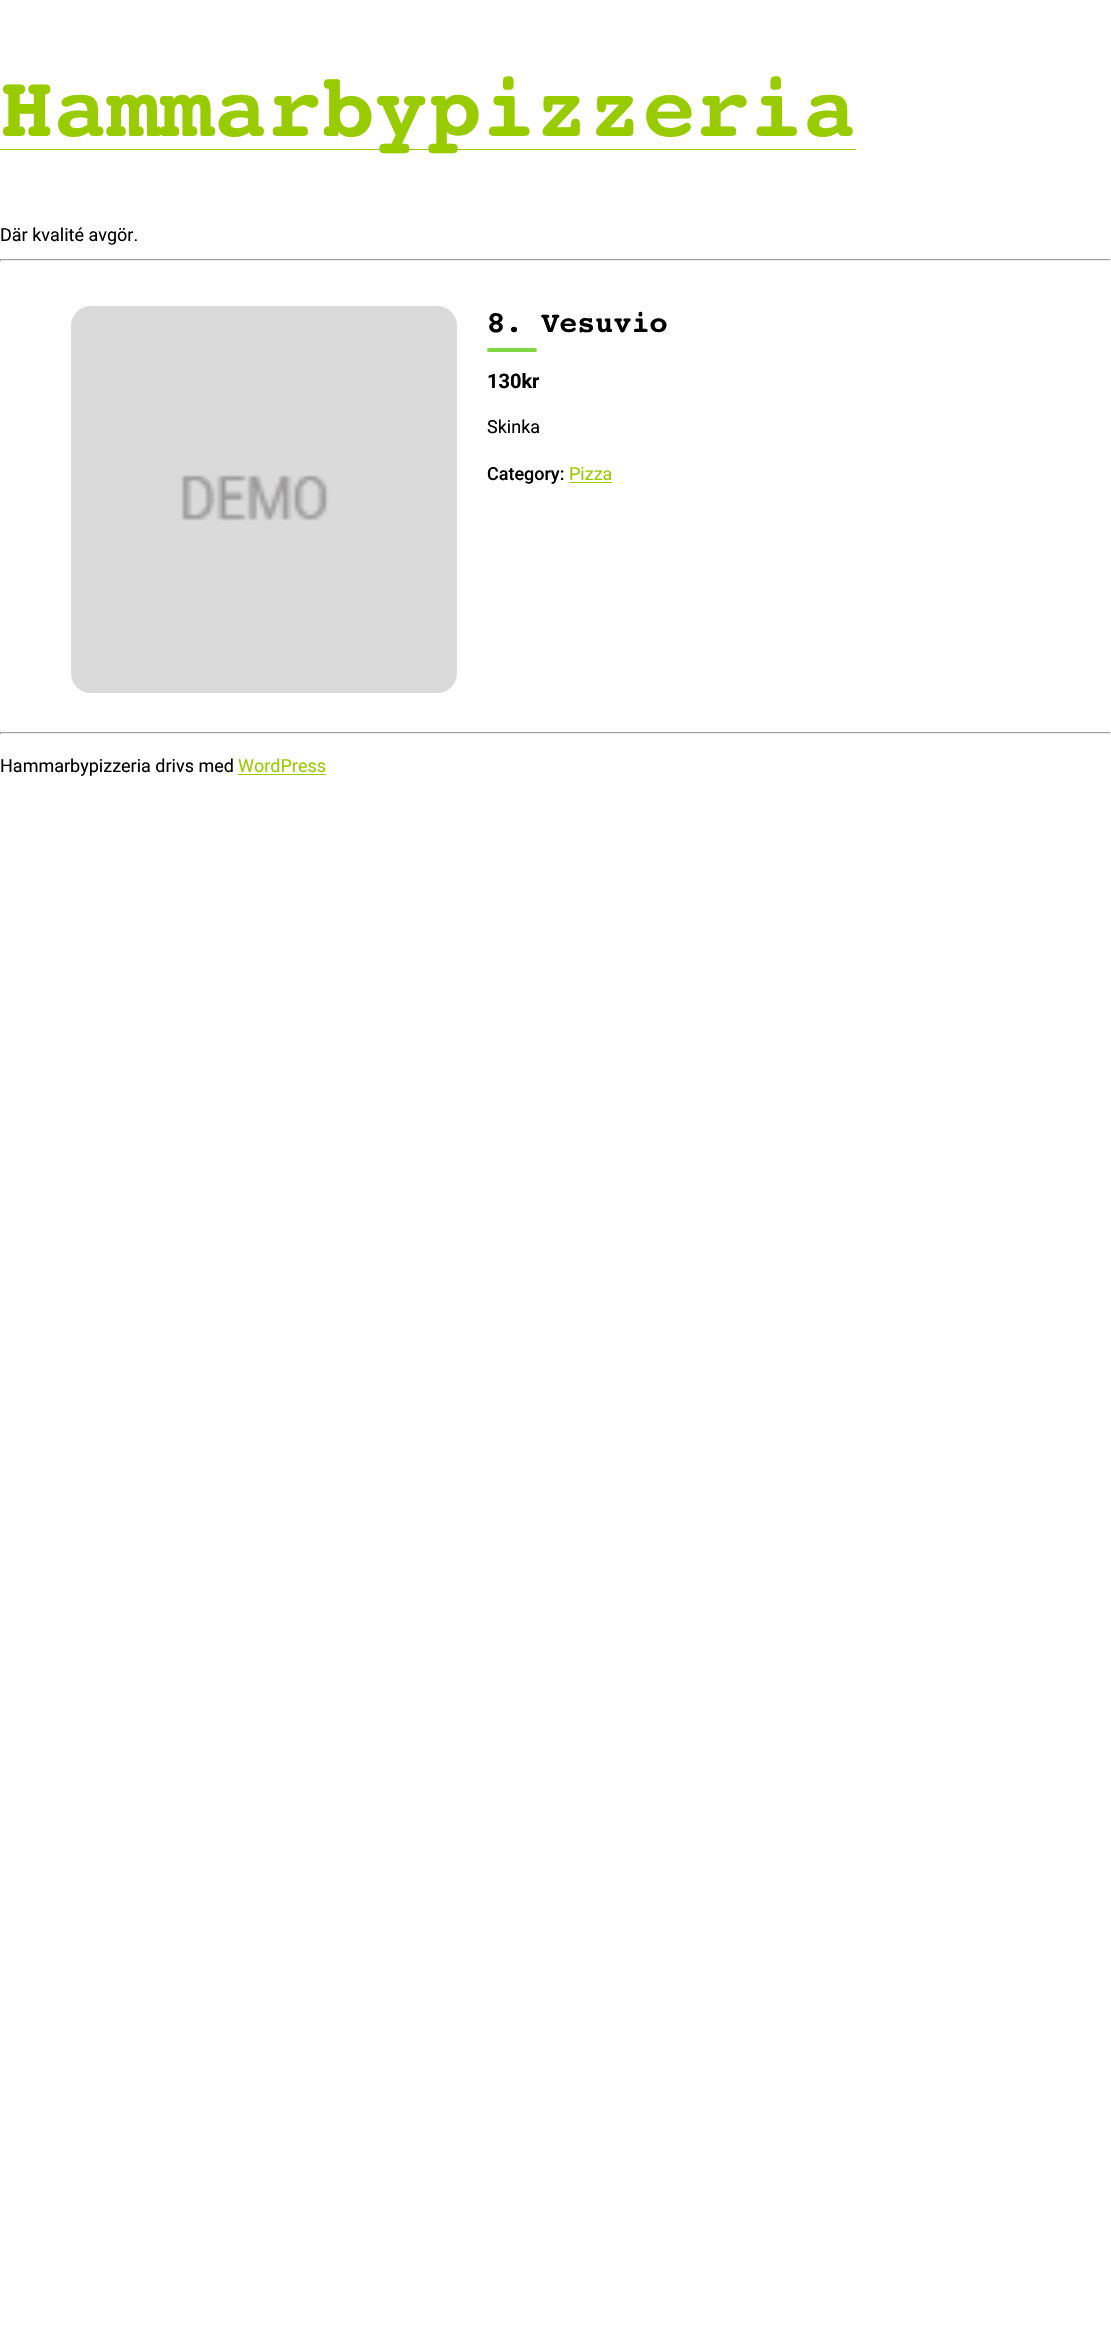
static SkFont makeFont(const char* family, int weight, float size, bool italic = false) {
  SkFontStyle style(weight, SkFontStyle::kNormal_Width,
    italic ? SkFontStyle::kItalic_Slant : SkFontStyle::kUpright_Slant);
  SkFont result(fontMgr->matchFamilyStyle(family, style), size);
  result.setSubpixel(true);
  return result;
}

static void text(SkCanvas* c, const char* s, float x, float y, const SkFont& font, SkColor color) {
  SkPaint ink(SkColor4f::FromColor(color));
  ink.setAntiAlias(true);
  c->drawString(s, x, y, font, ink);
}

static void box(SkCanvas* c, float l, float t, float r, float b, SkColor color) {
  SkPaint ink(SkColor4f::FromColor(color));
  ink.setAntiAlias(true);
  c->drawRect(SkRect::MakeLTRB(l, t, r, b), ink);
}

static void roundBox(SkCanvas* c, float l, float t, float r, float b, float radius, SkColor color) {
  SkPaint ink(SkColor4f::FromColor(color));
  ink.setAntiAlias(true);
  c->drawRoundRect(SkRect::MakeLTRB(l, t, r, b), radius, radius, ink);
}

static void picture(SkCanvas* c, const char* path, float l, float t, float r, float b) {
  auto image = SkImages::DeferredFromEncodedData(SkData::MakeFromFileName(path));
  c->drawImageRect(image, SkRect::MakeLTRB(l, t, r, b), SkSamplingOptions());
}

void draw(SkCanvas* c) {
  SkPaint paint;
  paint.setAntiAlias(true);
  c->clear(0xffffffff);
  box(c, 0, 149, 856, 150, 0xff99cc00);
  SkFont face1 = makeFont("Courier 10 Pitch", 700, 88.9f);
  text(c, "Hammarbypizzeria", 0, 136, face1, 0xff99cc00);
  SkFont face2 = makeFont("Roboto", 400, 18);
  text(c, "Där kvalité avgör.", 0, 241, face2, 0xff000000);
  box(c, 0, 259, 1111, 260, 0xff9f9f9f);
  box(c, 1110, 259, 1111, 261, 0xffeeeeee);
  box(c, 0, 260, 1111, 261, 0xffeeeeee);
  box(c, 0, 259, 1, 261, 0xff9f9f9f);
  picture(c, "img_01.png", 71, 306, 457, 693);
  SkFont face3 = makeFont("Courier 10 Pitch", 700, 30);
  text(c, "8. Vesuvio", 487, 332, face3, 0xff000000);
  roundBox(c, 487, 348, 537, 352, 2, 0xff81d742);
  SkFont face4 = makeFont("Roboto", 700, 20);
  text(c, "130kr", 487, 388, face4, 0xff000000);
  text(c, "Skinka", 487, 433, face2, 0xff000000);
  SkFont face5 = makeFont("Roboto", 500, 18);
  text(c, "Category:", 487, 480, face5, 0xff000000);
  text(c, "Pizza", 569, 480, face2, 0xff99cc00);
  box(c, 569, 482, 612, 483, 0xff99cc00);
  box(c, 0, 732, 1111, 733, 0xff9f9f9f);
  box(c, 1110, 732, 1111, 734, 0xffeeeeee);
  box(c, 0, 733, 1111, 734, 0xffeeeeee);
  box(c, 0, 732, 1, 734, 0xff9f9f9f);
  text(c, "Hammarbypizzeria drivs med", 0, 772, face2, 0xff000000);
  text(c, "WordPress", 238, 772, face2, 0xff99cc00);
  box(c, 238, 774, 326, 775, 0xff99cc00);
}
